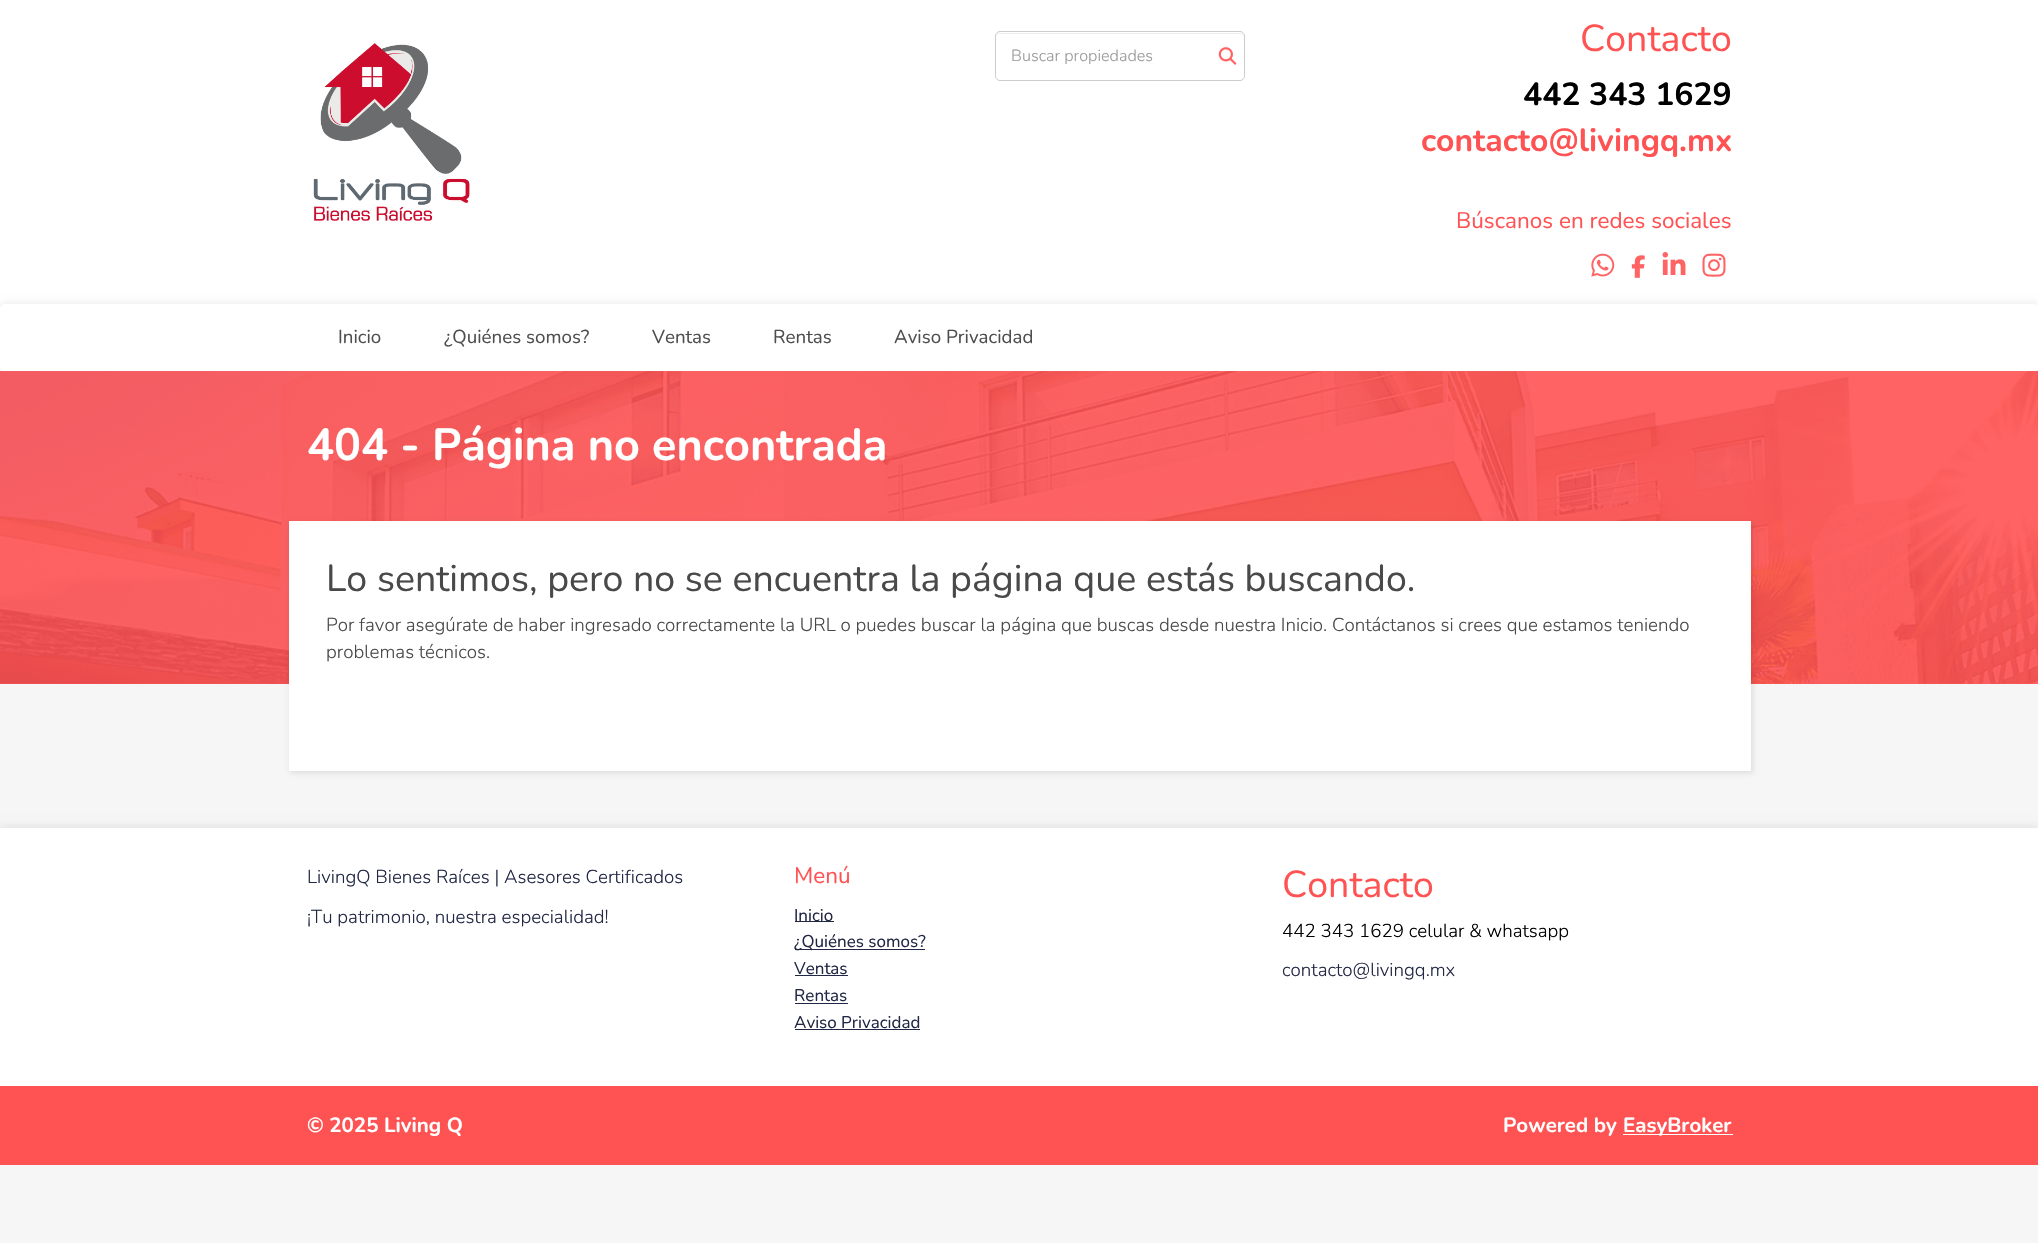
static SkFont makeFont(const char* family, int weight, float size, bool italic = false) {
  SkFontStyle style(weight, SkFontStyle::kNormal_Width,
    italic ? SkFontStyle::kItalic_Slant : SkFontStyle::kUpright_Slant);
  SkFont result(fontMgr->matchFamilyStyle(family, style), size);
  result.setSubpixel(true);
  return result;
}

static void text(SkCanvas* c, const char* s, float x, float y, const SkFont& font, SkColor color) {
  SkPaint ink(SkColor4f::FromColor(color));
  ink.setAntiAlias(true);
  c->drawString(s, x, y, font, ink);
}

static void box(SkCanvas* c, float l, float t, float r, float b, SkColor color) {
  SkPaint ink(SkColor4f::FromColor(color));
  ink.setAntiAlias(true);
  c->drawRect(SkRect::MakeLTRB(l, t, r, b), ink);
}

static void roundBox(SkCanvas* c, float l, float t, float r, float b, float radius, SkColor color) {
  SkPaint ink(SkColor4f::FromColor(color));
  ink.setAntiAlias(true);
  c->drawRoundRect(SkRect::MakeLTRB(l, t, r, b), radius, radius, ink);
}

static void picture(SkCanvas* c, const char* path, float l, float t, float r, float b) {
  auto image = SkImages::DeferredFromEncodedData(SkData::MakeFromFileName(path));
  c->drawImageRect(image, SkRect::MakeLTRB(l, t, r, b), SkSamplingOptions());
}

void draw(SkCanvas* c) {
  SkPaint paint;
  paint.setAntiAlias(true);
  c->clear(0xfff6f6f6);
  box(c, 0, 0, 2038, 371, 0xffffffff);
  picture(c, "img_01.png", 313, 43, 470, 221);
  paint.setColor(0xffececec);
  c->drawPath(SkPathBuilder().moveTo(1000, 34).lineTo(1240, 34).cubicTo(1242, 34, 1244, 35, 1244, 38).lineTo(1244, 37).cubicTo(1244, 35, 1242, 33, 1240, 33).lineTo(1000, 33).cubicTo(998, 33, 996, 35, 996, 37).lineTo(996, 38).cubicTo(996, 35, 998, 34, 1000, 34).close().detach(), paint);
  paint.setStyle(SkPaint::kStroke_Style);
  paint.setStrokeWidth(1);
  paint.setColor(0xffcccccc);
  c->drawRoundRect(SkRect::MakeLTRB(995.5f, 31.5f, 1244.5f, 80.5f), 4.5f, 4.5f, paint);
  SkFont face1 = makeFont("Nunito", 300, 16.25f);
  text(c, "Buscar propiedades", 1011, 61, face1, 0xff999999);
  picture(c, "img_02.png", 1218, 47, 1237, 65);
  SkFont face2 = makeFont("Nunito", 400, 37.5f);
  text(c, "Contacto", 1580, 51, face2, 0xffff5253);
  SkFont face3 = makeFont("Nunito", 700, 31.9f);
  text(c, "442 343 1629", 1523, 105, face3, 0xff000000);
  text(c, "contacto@livingq.mx", 1421, 151, face3, 0xffff5253);
  SkFont face4 = makeFont("Nunito", 400, 22.5f);
  text(c, "Búscanos en redes sociales", 1456, 228, face4, 0xffff5253);
  picture(c, "img_03.png", 1591, 253, 1615, 277);
  picture(c, "img_04.png", 1631, 255, 1645, 278);
  picture(c, "img_05.png", 1662, 252, 1686, 275);
  picture(c, "img_06.png", 1702, 253, 1726, 277);
  paint.setStyle(SkPaint::kFill_Style);
  paint.setColor(0x14000000);
  paint.setMaskFilter(SkMaskFilter::MakeBlur(kNormal_SkBlurStyle, 4));
  c->drawRoundRect(SkRect::MakeLTRB(0, 303, 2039, 370), 5, 5, paint);
  paint.setMaskFilter(nullptr);
  roundBox(c, 0, 304, 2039, 371, 5, 0xffffffff);
  SkFont face5 = makeFont("Nunito", 400, 18.75f);
  text(c, "Inicio", 338, 343, face5, 0xff4e4e50);
  text(c, "¿Quiénes somos?", 444, 343, face5, 0xff4e4e50);
  text(c, "Ventas", 652, 343, face5, 0xff4e4e50);
  text(c, "Rentas", 773, 343, face5, 0xff4e4e50);
  text(c, "Aviso Privacidad", 894, 343, face5, 0xff4e4e50);
  picture(c, "img_07.png", 0, 371, 2038, 684);
  box(c, 0, 371, 2038, 684, 0xe6ff5253);
  SkFont face6 = makeFont("Nunito", 700, 45);
  text(c, "404 - Página no encontrada", 307, 460, face6, 0xffffffff);
  paint.setColor(0x1a000000);
  paint.setMaskFilter(SkMaskFilter::MakeBlur(kNormal_SkBlurStyle, 2.5f));
  c->drawRect(SkRect::MakeLTRB(290, 523, 1753, 773), paint);
  paint.setMaskFilter(nullptr);
  box(c, 289, 521, 1751, 771, 0xffffffff);
  text(c, "Lo sentimos, pero no se encuentra la página que estás buscando.", 326, 591, face2, 0xff494949);
  SkFont face7 = makeFont("Nunito", 300, 18.75f);
  text(c, "Por favor asegúrate de haber ingresado correctamente la URL o puedes buscar la página que buscas desde nuestra Inicio. Contáctanos si crees que estamos teniendo", 326, 631, face7, 0xff494949);
  text(c, "problemas técnicos.", 326, 658, face7, 0xff494949);
  paint.setColor(0x14000000);
  paint.setMaskFilter(SkMaskFilter::MakeBlur(kNormal_SkBlurStyle, 4));
  c->drawRect(SkRect::MakeLTRB(0, 826, 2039, 1085), paint);
  paint.setMaskFilter(nullptr);
  box(c, 0, 828, 2038, 1086, 0xffffffff);
  text(c, "LivingQ Bienes Raíces | Asesores Certificados", 307, 883, face7, 0xff212845);
  text(c, "¡Tu patrimonio, nuestra especialidad!", 307, 923, face7, 0xff212845);
  text(c, "Menú", 794, 883, face4, 0xffff5253);
  box(c, 795, 921, 834, 922, 0xff212845);
  SkFont face8 = makeFont("Nunito", 400, 17);
  text(c, "Inicio", 794, 921, face8, 0xff212845);
  box(c, 795, 949, 925, 950, 0xff212845);
  text(c, "¿Quiénes somos?", 794, 947, face8, 0xff212845);
  text(c, "Ventas", 794, 974, face8, 0xff212845);
  box(c, 795, 975, 848, 976, 0xff212845);
  text(c, "Rentas", 794, 1001, face8, 0xff212845);
  box(c, 795, 1003, 848, 1004, 0xff212845);
  text(c, "Aviso Privacidad", 794, 1028, face8, 0xff212845);
  box(c, 795, 1029, 920, 1030, 0xff212845);
  text(c, "Contacto", 1282, 897, face2, 0xffff5253);
  text(c, "442 343 1629 celular & whatsapp", 1282, 937, face7, 0xff000000);
  text(c, "contacto@livingq.mx", 1282, 976, face7, 0xff212845);
  box(c, 0, 1086, 2038, 1165, 0xffff5253);
  SkFont face9 = makeFont("Nunito", 700, 20.5f);
  text(c, "© 2025 Living Q", 307, 1132, face9, 0xffffffff);
  text(c, "Powered by", 1503, 1132, face9, 0xffffffff);
  box(c, 1623, 1134, 1733, 1135, 0xffffffff);
  text(c, "EasyBroker", 1623, 1132, face9, 0xffffffff);
}
